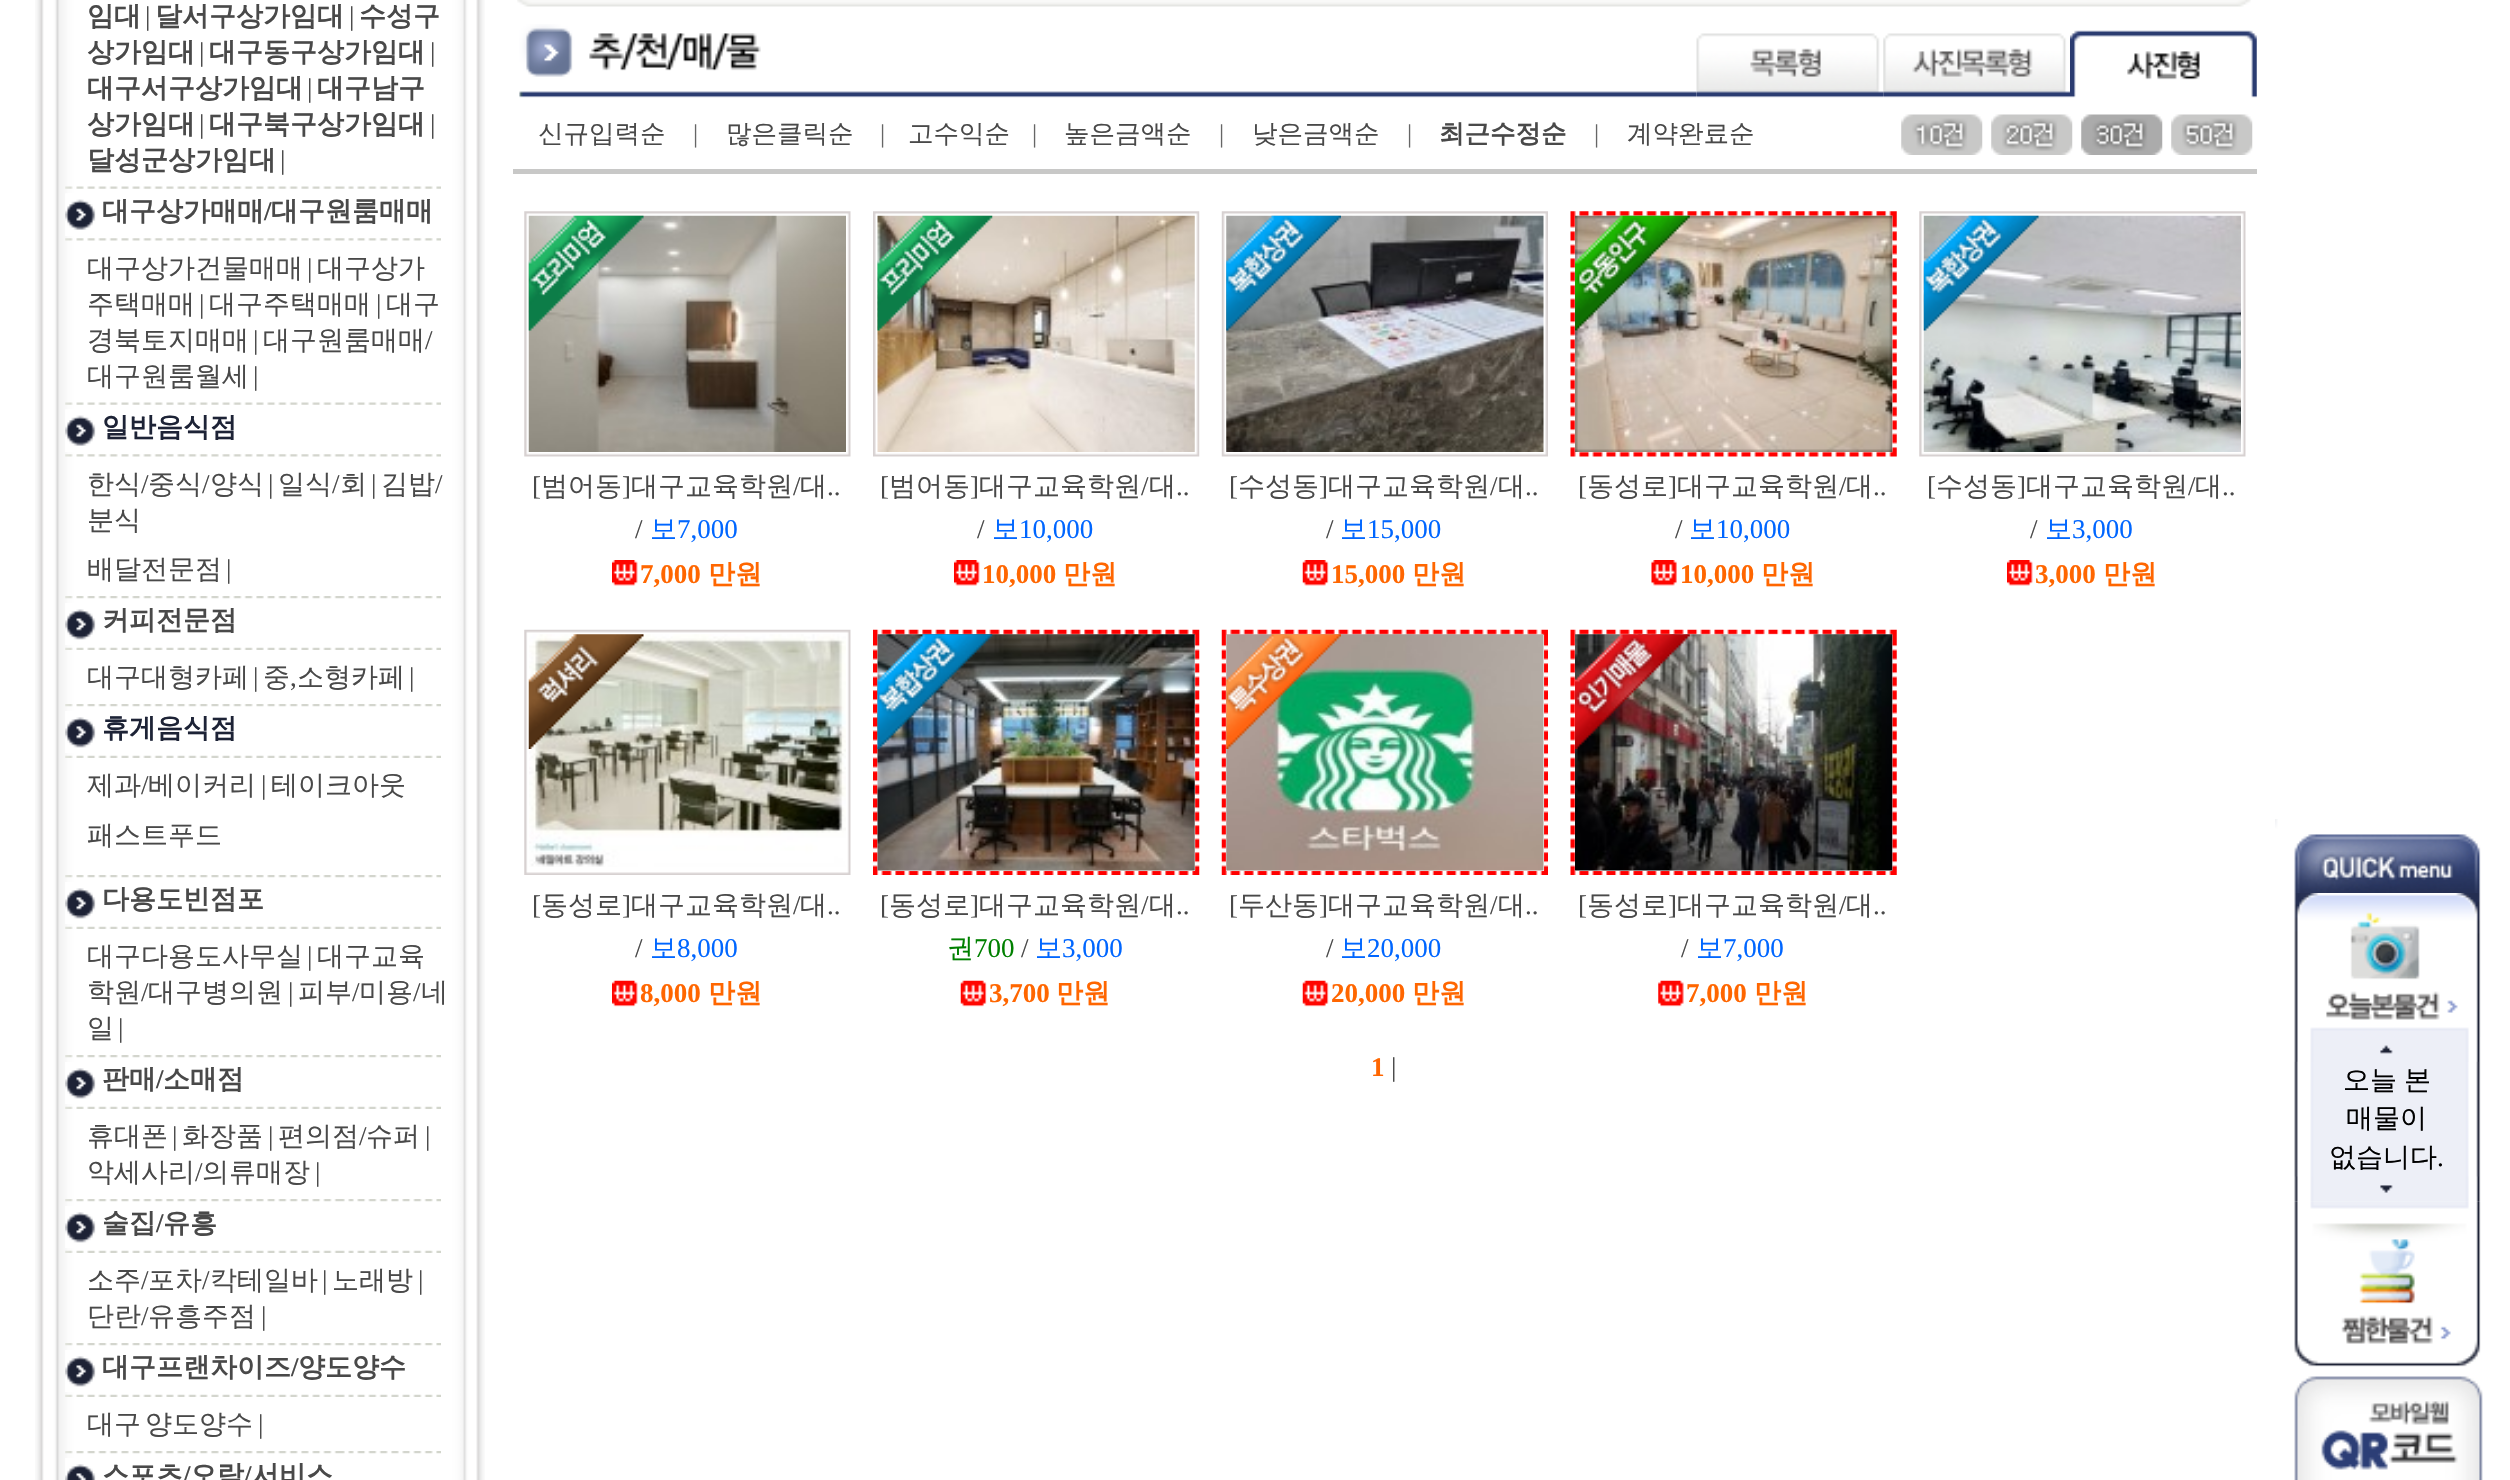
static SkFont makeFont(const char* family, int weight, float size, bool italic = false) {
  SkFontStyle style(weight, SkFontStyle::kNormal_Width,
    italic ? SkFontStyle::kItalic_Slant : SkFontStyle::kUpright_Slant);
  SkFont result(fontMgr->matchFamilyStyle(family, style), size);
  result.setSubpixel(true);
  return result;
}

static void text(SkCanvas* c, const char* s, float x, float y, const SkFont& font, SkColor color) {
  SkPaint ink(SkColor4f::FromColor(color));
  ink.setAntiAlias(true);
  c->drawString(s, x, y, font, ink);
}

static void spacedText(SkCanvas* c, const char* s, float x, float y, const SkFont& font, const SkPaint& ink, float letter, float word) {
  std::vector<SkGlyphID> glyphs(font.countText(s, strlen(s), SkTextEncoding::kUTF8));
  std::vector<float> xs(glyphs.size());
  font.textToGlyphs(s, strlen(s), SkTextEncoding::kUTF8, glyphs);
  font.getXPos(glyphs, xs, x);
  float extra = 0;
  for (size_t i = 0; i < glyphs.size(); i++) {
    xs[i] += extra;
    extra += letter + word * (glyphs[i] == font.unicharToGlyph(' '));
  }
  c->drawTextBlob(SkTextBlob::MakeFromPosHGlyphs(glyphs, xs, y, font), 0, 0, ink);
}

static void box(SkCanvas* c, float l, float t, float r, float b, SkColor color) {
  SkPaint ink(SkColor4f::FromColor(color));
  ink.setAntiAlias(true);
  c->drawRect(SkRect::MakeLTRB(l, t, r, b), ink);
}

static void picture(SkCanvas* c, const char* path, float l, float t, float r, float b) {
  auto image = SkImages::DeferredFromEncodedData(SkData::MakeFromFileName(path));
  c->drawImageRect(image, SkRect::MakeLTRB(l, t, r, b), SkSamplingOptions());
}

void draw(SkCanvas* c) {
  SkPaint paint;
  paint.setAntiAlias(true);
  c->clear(0xffffffff);
  picture(c, "img_01.png", 35, 0, 485, 1480);
  SkFont face1 = makeFont("WenQuanYi Zen Hei", 700, 27);
  text(c, "임대", 87, 25, face1, 0xff494949);
  SkFont face2 = makeFont("Liberation Serif", 400, 27);
  text(c, "|", 145, 25, face2, 0xff494949);
  text(c, "달서구상가임대", 155, 25, face1, 0xff494949);
  text(c, "|", 349, 25, face2, 0xff494949);
  text(c, "수성구", 359, 25, face1, 0xff494949);
  text(c, "상가임대", 87, 61, face1, 0xff494949);
  text(c, "|", 199, 61, face2, 0xff494949);
  text(c, "대구동구상가임대", 209, 61, face1, 0xff494949);
  text(c, "|", 430, 61, face2, 0xff494949);
  text(c, "대구서구상가임대", 87, 97, face1, 0xff494949);
  text(c, "|", 307, 97, face2, 0xff494949);
  text(c, "대구남구", 317, 97, face1, 0xff494949);
  text(c, "상가임대", 87, 133, face1, 0xff494949);
  text(c, "|", 199, 133, face2, 0xff494949);
  text(c, "대구북구상가임대", 209, 133, face1, 0xff494949);
  text(c, "|", 430, 133, face2, 0xff494949);
  text(c, "달성군상가임대", 87, 169, face1, 0xff494949);
  text(c, "|", 280, 169, face2, 0xff494949);
  picture(c, "img_02.png", 65, 186, 441, 189);
  picture(c, "img_03.png", 65, 193, 96, 236);
  text(c, "대구상가매매", 102, 220, face1, 0xff494949);
  SkFont face3 = makeFont("Liberation Serif", 700, 27);
  text(c, "/", 264, 220, face3, 0xff494949);
  text(c, "대구원룸매매", 271, 220, face1, 0xff494949);
  picture(c, "img_04.png", 65, 238, 441, 241);
  SkFont face4 = makeFont("WenQuanYi Zen Hei", 500, 27);
  text(c, "대구상가건물매매", 87, 277, face4, 0xff494949);
  text(c, "|", 307, 277, face2, 0xff494949);
  text(c, "대구상가", 317, 277, face4, 0xff494949);
  text(c, "주택매매", 87, 313, face4, 0xff494949);
  text(c, "|", 199, 313, face2, 0xff494949);
  text(c, "대구주택매매", 209, 313, face4, 0xff494949);
  text(c, "|", 376, 313, face2, 0xff494949);
  text(c, "대구", 386, 313, face4, 0xff494949);
  text(c, "경북토지매매", 87, 349, face4, 0xff494949);
  text(c, "|", 253, 349, face2, 0xff494949);
  text(c, "대구원룸매매", 263, 349, face4, 0xff494949);
  text(c, "/", 425, 349, face2, 0xff494949);
  text(c, "대구원룸월세", 87, 385, face4, 0xff494949);
  text(c, "|", 253, 385, face2, 0xff494949);
  picture(c, "img_02.png", 65, 402, 441, 405);
  picture(c, "img_03.png", 65, 409, 96, 452);
  text(c, "일반음식점", 102, 436, face1, 0xff1d2336);
  picture(c, "img_04.png", 65, 454, 441, 457);
  text(c, "한식", 87, 493, face4, 0xff494949);
  text(c, "/", 141, 493, face2, 0xff494949);
  text(c, "중식", 148, 493, face4, 0xff494949);
  text(c, "/", 202, 493, face2, 0xff494949);
  text(c, "양식", 210, 493, face4, 0xff494949);
  text(c, "|", 268, 493, face2, 0xff494949);
  text(c, "일식", 278, 493, face4, 0xff494949);
  text(c, "/", 332, 493, face2, 0xff494949);
  text(c, "회", 340, 493, face4, 0xff494949);
  text(c, "|", 371, 493, face2, 0xff494949);
  text(c, "김밥", 381, 493, face4, 0xff494949);
  text(c, "/", 435, 493, face2, 0xff494949);
  text(c, "분식", 87, 529, face4, 0xff494949);
  text(c, "배달전문점", 87, 578, face4, 0xff494949);
  text(c, "|", 226, 578, face2, 0xff494949);
  picture(c, "img_05.png", 65, 596, 441, 599);
  picture(c, "img_06.png", 65, 603, 96, 645);
  text(c, "커피전문점", 102, 629, face1, 0xff494949);
  picture(c, "img_07.png", 65, 647, 441, 650);
  text(c, "대구대형카페", 87, 686, face4, 0xff494949);
  text(c, "|", 253, 686, face2, 0xff494949);
  text(c, "중", 263, 686, face4, 0xff494949);
  text(c, ",", 290, 686, face2, 0xff494949);
  text(c, "소형카페", 297, 686, face4, 0xff494949);
  text(c, "|", 409, 686, face2, 0xff494949);
  picture(c, "img_05.png", 65, 704, 441, 707);
  picture(c, "img_08.png", 65, 711, 96, 753);
  text(c, "휴게음식점", 102, 737, face1, 0xff1d2336);
  picture(c, "img_07.png", 65, 755, 441, 758);
  text(c, "제과", 87, 794, face4, 0xff494949);
  text(c, "/", 141, 794, face2, 0xff494949);
  text(c, "베이커리", 148, 794, face4, 0xff494949);
  text(c, "|", 261, 794, face2, 0xff494949);
  text(c, "테이크아웃", 271, 794, face4, 0xff494949);
  text(c, "패스트푸드", 87, 844, face4, 0xff494949);
  picture(c, "img_05.png", 65, 875, 441, 878);
  picture(c, "img_08.png", 65, 882, 96, 924);
  text(c, "다용도빈점포", 102, 908, face1, 0xff494949);
  picture(c, "img_07.png", 65, 926, 441, 929);
  text(c, "대구다용도사무실", 87, 965, face4, 0xff494949);
  text(c, "|", 307, 965, face2, 0xff494949);
  text(c, "대구교육", 317, 965, face4, 0xff494949);
  text(c, "학원", 87, 1001, face4, 0xff494949);
  text(c, "/", 141, 1001, face2, 0xff494949);
  text(c, "대구병의원", 148, 1001, face4, 0xff494949);
  text(c, "|", 288, 1001, face2, 0xff494949);
  text(c, "피부", 298, 1001, face4, 0xff494949);
  text(c, "/", 352, 1001, face2, 0xff494949);
  text(c, "미용", 359, 1001, face4, 0xff494949);
  text(c, "/", 413, 1001, face2, 0xff494949);
  text(c, "네", 421, 1001, face4, 0xff494949);
  text(c, "일", 87, 1037, face4, 0xff494949);
  text(c, "|", 118, 1037, face2, 0xff494949);
  picture(c, "img_05.png", 65, 1055, 441, 1058);
  picture(c, "img_08.png", 65, 1062, 96, 1104);
  text(c, "판매", 102, 1088, face1, 0xff494949);
  text(c, "/", 156, 1088, face3, 0xff494949);
  text(c, "소매점", 163, 1088, face1, 0xff494949);
  picture(c, "img_07.png", 65, 1106, 441, 1109);
  text(c, "휴대폰", 87, 1145, face4, 0xff494949);
  text(c, "|", 172, 1145, face2, 0xff494949);
  text(c, "화장품", 182, 1145, face4, 0xff494949);
  text(c, "|", 268, 1145, face2, 0xff494949);
  text(c, "편의점", 278, 1145, face4, 0xff494949);
  text(c, "/", 359, 1145, face2, 0xff494949);
  text(c, "슈퍼", 366, 1145, face4, 0xff494949);
  text(c, "|", 425, 1145, face2, 0xff494949);
  text(c, "악세사리", 87, 1181, face4, 0xff494949);
  text(c, "/", 195, 1181, face2, 0xff494949);
  text(c, "의류매장", 202, 1181, face4, 0xff494949);
  text(c, "|", 315, 1181, face2, 0xff494949);
  picture(c, "img_05.png", 65, 1199, 441, 1202);
  picture(c, "img_08.png", 65, 1206, 96, 1248);
  text(c, "술집", 102, 1232, face1, 0xff494949);
  text(c, "/", 156, 1232, face3, 0xff494949);
  text(c, "유흥", 163, 1232, face1, 0xff494949);
  picture(c, "img_07.png", 65, 1250, 441, 1253);
  text(c, "소주", 87, 1289, face4, 0xff494949);
  text(c, "/", 141, 1289, face2, 0xff494949);
  text(c, "포차", 148, 1289, face4, 0xff494949);
  text(c, "/", 202, 1289, face2, 0xff494949);
  text(c, "칵테일바", 210, 1289, face4, 0xff494949);
  text(c, "|", 322, 1289, face2, 0xff494949);
  text(c, "노래방", 332, 1289, face4, 0xff494949);
  text(c, "|", 418, 1289, face2, 0xff494949);
  text(c, "단란", 87, 1325, face4, 0xff494949);
  text(c, "/", 141, 1325, face2, 0xff494949);
  text(c, "유흥주점", 148, 1325, face4, 0xff494949);
  text(c, "|", 261, 1325, face2, 0xff494949);
  picture(c, "img_05.png", 65, 1343, 441, 1346);
  picture(c, "img_08.png", 65, 1350, 96, 1392);
  text(c, "대구프랜차이즈", 102, 1376, face1, 0xff494949);
  text(c, "/", 291, 1376, face3, 0xff494949);
  text(c, "양도양수", 298, 1376, face1, 0xff494949);
  picture(c, "img_07.png", 65, 1394, 441, 1397);
  paint.setColor(0xff494949);
  spacedText(c, "대구 양도양수", 87, 1433, face4, paint, 0, -4);
  text(c, "|", 258, 1433, face2, 0xff494949);
  picture(c, "img_05.png", 65, 1451, 441, 1454);
  picture(c, "img_09.png", 65, 1458, 96, 1480);
  text(c, "스포츠", 102, 1484, face1, 0xff494949);
  text(c, "/", 183, 1484, face3, 0xff494949);
  text(c, "오락", 190, 1484, face1, 0xff494949);
  text(c, "/", 244, 1484, face3, 0xff494949);
  text(c, "서비스", 252, 1484, face1, 0xff494949);
  picture(c, "img_10.png", 517, 0, 2251, 7);
  picture(c, "img_11.png", 519, 24, 1697, 98);
  picture(c, "img_12.png", 589, 33, 761, 71);
  picture(c, "img_13.png", 1696, 33, 1884, 98);
  picture(c, "img_14.png", 1883, 33, 2070, 98);
  picture(c, "img_15.png", 2070, 30, 2257, 98);
  SkFont face5 = makeFont("WenQuanYi Zen Hei", 500, 25.5f);
  text(c, "신규입력순", 538, 142, face5, 0xff494949);
  SkFont face6 = makeFont("Liberation Serif", 400, 25.5f);
  text(c, "|", 693, 142, face6, 0xff666666);
  text(c, "많은클릭순", 726, 142, face5, 0xff494949);
  text(c, "|", 880, 142, face6, 0xff666666);
  text(c, "고수익순", 908, 142, face5, 0xff494949);
  text(c, "|", 1032, 142, face6, 0xff666666);
  text(c, "높은금액순", 1064, 142, face5, 0xff494949);
  text(c, "|", 1219, 142, face6, 0xff666666);
  text(c, "낮은금액순", 1252, 142, face5, 0xff494949);
  text(c, "|", 1407, 142, face6, 0xff666666);
  SkFont face7 = makeFont("WenQuanYi Zen Hei", 700, 25.5f);
  text(c, "최근수정순", 1439, 142, face7, 0xff494949);
  text(c, "|", 1594, 142, face6, 0xff666666);
  text(c, "계약완료순", 1627, 142, face5, 0xff494949);
  picture(c, "img_16.png", 1901, 114, 1983, 155);
  picture(c, "img_17.png", 1991, 114, 2073, 155);
  picture(c, "img_18.png", 2081, 114, 2163, 155);
  picture(c, "img_19.png", 2171, 114, 2253, 155);
  box(c, 513, 169, 2257, 174, 0xffc8c8c7);
  picture(c, "img_20.png", 524, 211, 851, 457);
  picture(c, "img_21.png", 528, 215, 846, 452);
  picture(c, "img_22.png", 528, 215, 644, 331);
  text(c, "[", 532, 495, face2, 0xff494949);
  text(c, "범어동", 541, 495, face4, 0xff494949);
  text(c, "]", 622, 495, face2, 0xff494949);
  text(c, "대구교육학원", 631, 495, face4, 0xff494949);
  text(c, "/", 793, 495, face2, 0xff494949);
  text(c, "대", 800, 495, face4, 0xff494949);
  text(c, "..", 827, 495, face2, 0xff494949);
  text(c, "/", 635, 538, face2, 0xff494949);
  text(c, "보", 650, 538, face4, 0xff0066ff);
  text(c, "7,000", 677, 538, face2, 0xff0066ff);
  picture(c, "img_23.png", 612, 560, 638, 586);
  text(c, "7,000", 640, 583, face3, 0xffff6600);
  text(c, "만원", 708, 583, face1, 0xffff6600);
  picture(c, "img_24.png", 873, 211, 1200, 457);
  picture(c, "img_25.png", 877, 215, 1195, 452);
  picture(c, "img_26.png", 877, 215, 993, 331);
  text(c, "[", 880, 495, face2, 0xff494949);
  text(c, "범어동", 889, 495, face4, 0xff494949);
  text(c, "]", 970, 495, face2, 0xff494949);
  text(c, "대구교육학원", 979, 495, face4, 0xff494949);
  text(c, "/", 1141, 495, face2, 0xff494949);
  text(c, "대", 1149, 495, face4, 0xff494949);
  text(c, "..", 1176, 495, face2, 0xff494949);
  text(c, "/", 977, 538, face2, 0xff494949);
  text(c, "보", 992, 538, face4, 0xff0066ff);
  text(c, "10,000", 1019, 538, face2, 0xff0066ff);
  picture(c, "img_27.png", 954, 560, 980, 586);
  text(c, "10,000", 982, 583, face3, 0xffff6600);
  text(c, "만원", 1063, 583, face1, 0xffff6600);
  picture(c, "img_28.png", 1221, 211, 1548, 457);
  picture(c, "img_29.png", 1226, 215, 1544, 452);
  picture(c, "img_30.png", 1226, 215, 1341, 331);
  text(c, "[", 1229, 495, face2, 0xff494949);
  text(c, "수성동", 1238, 495, face4, 0xff494949);
  text(c, "]", 1319, 495, face2, 0xff494949);
  text(c, "대구교육학원", 1328, 495, face4, 0xff494949);
  text(c, "/", 1490, 495, face2, 0xff494949);
  text(c, "대", 1498, 495, face4, 0xff494949);
  text(c, "..", 1525, 495, face2, 0xff494949);
  text(c, "/", 1326, 538, face2, 0xff494949);
  text(c, "보", 1340, 538, face4, 0xff0066ff);
  text(c, "15,000", 1367, 538, face2, 0xff0066ff);
  picture(c, "img_31.png", 1302, 560, 1329, 586);
  text(c, "15,000", 1331, 583, face3, 0xffff6600);
  text(c, "만원", 1412, 583, face1, 0xffff6600);
  picture(c, "img_32.png", 1570, 211, 1897, 457);
  picture(c, "img_33.png", 1575, 215, 1893, 452);
  picture(c, "img_34.png", 1575, 215, 1690, 331);
  text(c, "[", 1578, 495, face2, 0xff494949);
  text(c, "동성로", 1587, 495, face4, 0xff494949);
  text(c, "]", 1668, 495, face2, 0xff494949);
  text(c, "대구교육학원", 1677, 495, face4, 0xff494949);
  text(c, "/", 1839, 495, face2, 0xff494949);
  text(c, "대", 1846, 495, face4, 0xff494949);
  text(c, "..", 1873, 495, face2, 0xff494949);
  text(c, "/", 1675, 538, face2, 0xff494949);
  text(c, "보", 1689, 538, face4, 0xff0066ff);
  text(c, "10,000", 1716, 538, face2, 0xff0066ff);
  picture(c, "img_35.png", 1651, 560, 1677, 586);
  text(c, "10,000", 1680, 583, face3, 0xffff6600);
  text(c, "만원", 1761, 583, face1, 0xffff6600);
  picture(c, "img_20.png", 1919, 211, 2246, 457);
  picture(c, "img_36.png", 1923, 215, 2241, 452);
  picture(c, "img_37.png", 1923, 215, 2039, 331);
  text(c, "[", 1927, 495, face2, 0xff494949);
  text(c, "수성동", 1936, 495, face4, 0xff494949);
  text(c, "]", 2017, 495, face2, 0xff494949);
  text(c, "대구교육학원", 2026, 495, face4, 0xff494949);
  text(c, "/", 2188, 495, face2, 0xff494949);
  text(c, "대", 2195, 495, face4, 0xff494949);
  text(c, "..", 2222, 495, face2, 0xff494949);
  text(c, "/", 2030, 538, face2, 0xff494949);
  text(c, "보", 2045, 538, face4, 0xff0066ff);
  text(c, "3,000", 2072, 538, face2, 0xff0066ff);
  picture(c, "img_27.png", 2007, 560, 2033, 586);
  text(c, "3,000", 2035, 583, face3, 0xffff6600);
  text(c, "만원", 2103, 583, face1, 0xffff6600);
  picture(c, "img_38.png", 524, 629, 851, 875);
  picture(c, "img_39.png", 529, 634, 846, 867);
  picture(c, "img_40.png", 528, 634, 644, 749);
  text(c, "[", 532, 914, face2, 0xff494949);
  text(c, "동성로", 541, 914, face4, 0xff494949);
  text(c, "]", 622, 914, face2, 0xff494949);
  text(c, "대구교육학원", 631, 914, face4, 0xff494949);
  text(c, "/", 793, 914, face2, 0xff494949);
  text(c, "대", 800, 914, face4, 0xff494949);
  text(c, "..", 827, 914, face2, 0xff494949);
  text(c, "/", 635, 957, face2, 0xff494949);
  text(c, "보", 650, 957, face4, 0xff0066ff);
  text(c, "8,000", 677, 957, face2, 0xff0066ff);
  picture(c, "img_41.png", 612, 980, 638, 1007);
  text(c, "8,000", 640, 1002, face3, 0xffff6600);
  text(c, "만원", 708, 1002, face1, 0xffff6600);
  picture(c, "img_42.png", 873, 629, 1200, 875);
  box(c, 878, 635, 1195, 871, 0xffffffff);
  picture(c, "img_43.png", 877, 634, 1195, 871);
  picture(c, "img_44.png", 877, 634, 993, 749);
  text(c, "[", 880, 914, face2, 0xff494949);
  text(c, "동성로", 889, 914, face4, 0xff494949);
  text(c, "]", 970, 914, face2, 0xff494949);
  text(c, "대구교육학원", 979, 914, face4, 0xff494949);
  text(c, "/", 1141, 914, face2, 0xff494949);
  text(c, "대", 1149, 914, face4, 0xff494949);
  text(c, "..", 1176, 914, face2, 0xff494949);
  text(c, "권", 947, 957, face4, 0xff008000);
  text(c, "700", 974, 957, face2, 0xff008000);
  text(c, "/", 1021, 957, face2, 0xff494949);
  text(c, "보", 1035, 957, face4, 0xff0066ff);
  text(c, "3,000", 1062, 957, face2, 0xff0066ff);
  picture(c, "img_45.png", 960, 980, 987, 1007);
  text(c, "3,700", 989, 1002, face3, 0xffff6600);
  text(c, "만원", 1056, 1002, face1, 0xffff6600);
  picture(c, "img_46.png", 1221, 629, 1548, 875);
  box(c, 1226, 635, 1544, 871, 0xffffffff);
  picture(c, "img_47.png", 1226, 634, 1544, 871);
  picture(c, "img_48.png", 1226, 634, 1341, 749);
  text(c, "[", 1229, 914, face2, 0xff494949);
  text(c, "두산동", 1238, 914, face4, 0xff494949);
  text(c, "]", 1319, 914, face2, 0xff494949);
  text(c, "대구교육학원", 1328, 914, face4, 0xff494949);
  text(c, "/", 1490, 914, face2, 0xff494949);
  text(c, "대", 1498, 914, face4, 0xff494949);
  text(c, "..", 1525, 914, face2, 0xff494949);
  text(c, "/", 1326, 957, face2, 0xff494949);
  text(c, "보", 1340, 957, face4, 0xff0066ff);
  text(c, "20,000", 1367, 957, face2, 0xff0066ff);
  picture(c, "img_49.png", 1302, 980, 1329, 1007);
  text(c, "20,000", 1331, 1002, face3, 0xffff6600);
  text(c, "만원", 1412, 1002, face1, 0xffff6600);
  picture(c, "img_50.png", 1570, 629, 1897, 875);
  box(c, 1575, 870, 1892, 871, 0xffffffff);
  picture(c, "img_51.png", 1575, 634, 1893, 871);
  picture(c, "img_52.png", 1575, 634, 1690, 749);
  text(c, "[", 1578, 914, face2, 0xff494949);
  text(c, "동성로", 1587, 914, face4, 0xff494949);
  text(c, "]", 1668, 914, face2, 0xff494949);
  text(c, "대구교육학원", 1677, 914, face4, 0xff494949);
  text(c, "/", 1839, 914, face2, 0xff494949);
  text(c, "대", 1846, 914, face4, 0xff494949);
  text(c, "..", 1873, 914, face2, 0xff494949);
  text(c, "/", 1681, 957, face2, 0xff494949);
  text(c, "보", 1696, 957, face4, 0xff0066ff);
  text(c, "7,000", 1723, 957, face2, 0xff0066ff);
  picture(c, "img_53.png", 1658, 980, 1684, 1007);
  text(c, "7,000", 1686, 1002, face3, 0xffff6600);
  text(c, "만원", 1754, 1002, face1, 0xffff6600);
  text(c, "1", 1371, 1076, face3, 0xffff6600);
  text(c, "|", 1391, 1076, face2, 0xff494949);
  picture(c, "img_54.png", 2275, 819, 2481, 893);
  picture(c, "img_55.png", 2294, 893, 2481, 1037);
  picture(c, "img_56.png", 2294, 1037, 2481, 1202);
  picture(c, "img_57.png", 2294, 1037, 2479, 1062);
  paint.setColor(0xff000000);
  spacedText(c, "오늘 본", 2343, 1089, face4, paint, 0, -1);
  text(c, "매물이", 2346, 1127, face4, 0xff000000);
  text(c, "없습니다", 2329, 1166, face4, 0xff000000);
  text(c, ".", 2437, 1166, face2, 0xff000000);
  picture(c, "img_58.png", 2294, 1176, 2480, 1202);
  picture(c, "img_59.png", 2294, 1201, 2481, 1367);
  picture(c, "img_60.png", 2294, 1376, 2483, 1480);
}
